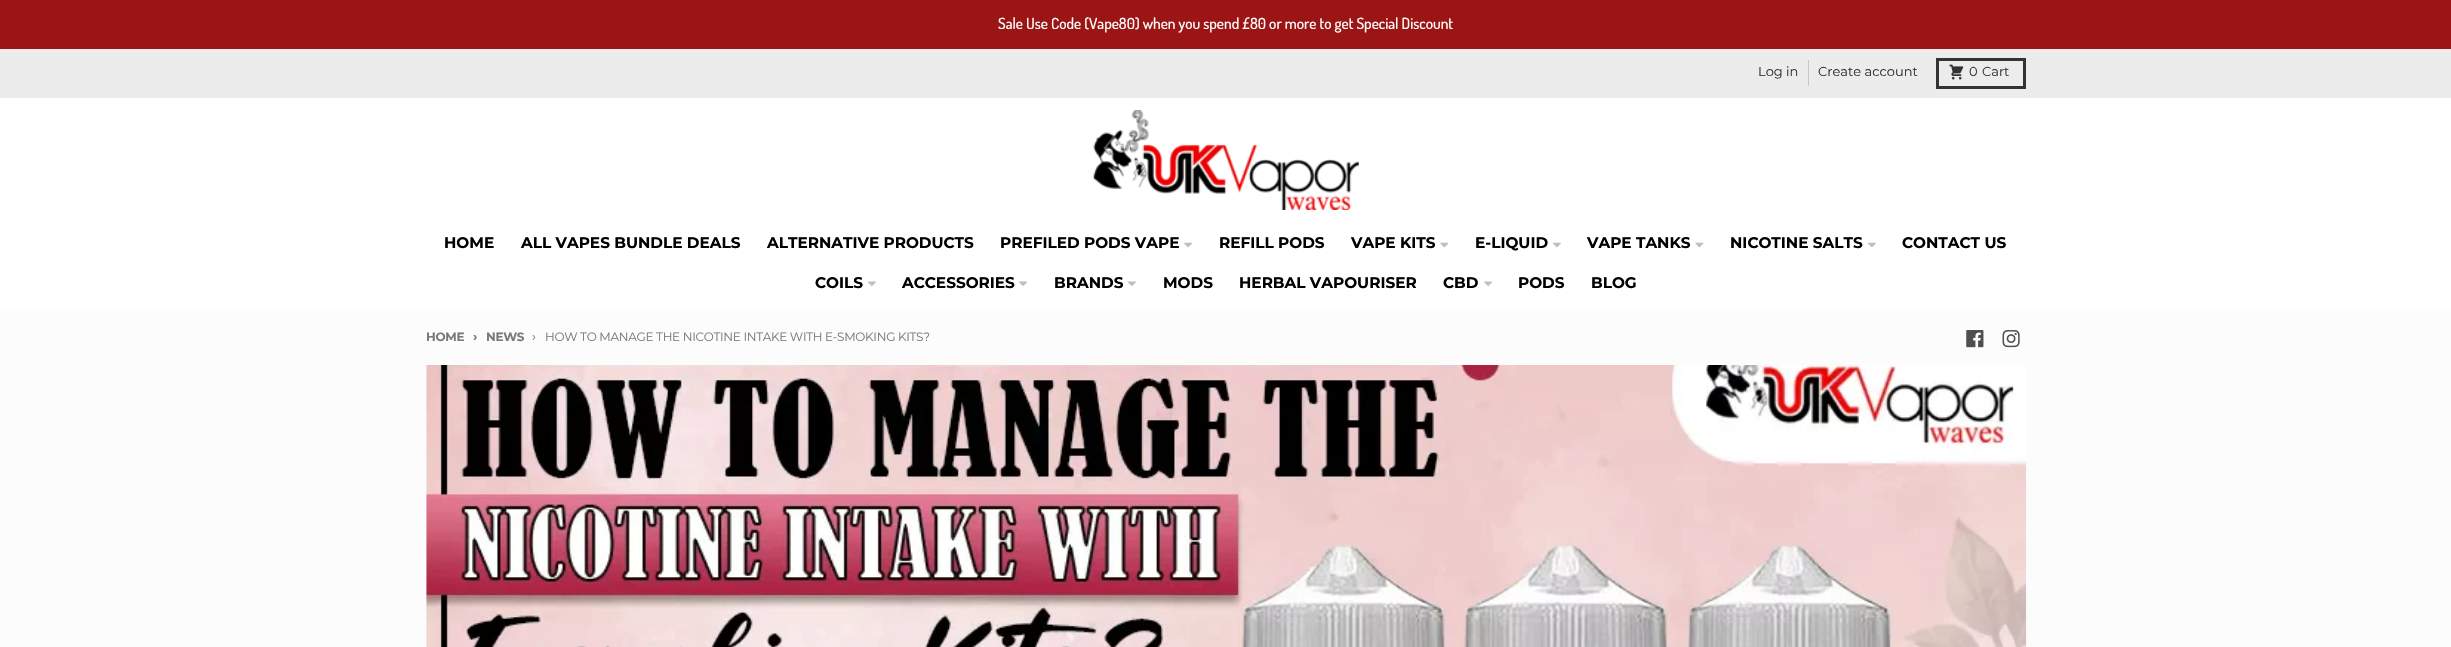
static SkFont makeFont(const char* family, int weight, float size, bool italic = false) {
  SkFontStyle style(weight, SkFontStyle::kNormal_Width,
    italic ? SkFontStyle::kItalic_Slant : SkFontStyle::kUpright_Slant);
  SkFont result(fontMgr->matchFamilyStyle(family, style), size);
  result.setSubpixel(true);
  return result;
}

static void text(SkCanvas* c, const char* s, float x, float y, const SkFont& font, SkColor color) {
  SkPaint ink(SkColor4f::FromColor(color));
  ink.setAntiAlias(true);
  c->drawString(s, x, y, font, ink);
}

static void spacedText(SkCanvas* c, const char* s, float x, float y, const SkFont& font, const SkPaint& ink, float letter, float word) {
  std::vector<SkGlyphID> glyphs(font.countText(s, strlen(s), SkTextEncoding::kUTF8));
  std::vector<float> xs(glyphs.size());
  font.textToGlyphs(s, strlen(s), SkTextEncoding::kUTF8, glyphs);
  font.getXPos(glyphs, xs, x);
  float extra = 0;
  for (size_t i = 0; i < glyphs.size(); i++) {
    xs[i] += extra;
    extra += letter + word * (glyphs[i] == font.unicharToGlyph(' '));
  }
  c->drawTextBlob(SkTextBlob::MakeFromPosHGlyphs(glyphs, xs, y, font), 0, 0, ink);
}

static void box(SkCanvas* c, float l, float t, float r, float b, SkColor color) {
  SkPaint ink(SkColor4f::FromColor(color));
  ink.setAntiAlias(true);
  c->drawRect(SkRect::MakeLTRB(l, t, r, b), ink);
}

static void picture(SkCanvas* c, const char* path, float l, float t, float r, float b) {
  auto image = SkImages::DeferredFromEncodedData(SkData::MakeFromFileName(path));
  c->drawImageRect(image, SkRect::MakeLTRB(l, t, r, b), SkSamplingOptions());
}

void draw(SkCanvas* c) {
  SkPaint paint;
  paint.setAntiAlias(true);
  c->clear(0xffececec);
  box(c, 0, 0, 2451, 49, 0xff9b1515);
  SkFont face1 = makeFont("Dosis", 500, 15.3f);
  text(c, "Sale Use Code (Vape80) when you spend £80 or more to get Special Discount", 998, 29, face1, 0xffffffff);
  SkFont face2 = makeFont("Montserrat", 400, 13);
  text(c, "Log in", 1758, 76, face2, 0xff333333);
  box(c, 1808, 60, 1809, 86, 0xffc7c7c7);
  text(c, "Create account", 1818, 76, face2, 0xff333333);
  paint.setStyle(SkPaint::kStroke_Style);
  paint.setStrokeWidth(3);
  paint.setColor(0xff333333);
  c->drawRect(SkRect::MakeLTRB(1937.5f, 59.5f, 2024.5f, 87.5f), paint);
  picture(c, "img_01.png", 1949, 64, 1964, 80);
  text(c, "0", 1969, 76, face2, 0xff333333);
  text(c, "Cart", 1982, 76, face2, 0xff333333);
  box(c, 0, 98, 2451, 311, 0xffffffff);
  picture(c, "img_02.png", 1093, 110, 1359, 210);
  SkFont face3 = makeFont("Montserrat", 700, 15.3f);
  text(c, "HOME", 444, 248, face3, 0xff000000);
  text(c, "ALL VAPES BUNDLE DEALS", 521, 248, face3, 0xff000000);
  text(c, "ALTERNATIVE PRODUCTS", 767, 248, face3, 0xff000000);
  text(c, "PREFILED PODS VAPE", 1000, 248, face3, 0xff000000);
  picture(c, "img_03.png", 1184, 242, 1193, 248);
  text(c, "REFILL PODS", 1219, 248, face3, 0xff000000);
  text(c, "VAPE KITS", 1351, 248, face3, 0xff000000);
  picture(c, "img_04.png", 1440, 242, 1449, 248);
  text(c, "E-LIQUID", 1475, 248, face3, 0xff000000);
  picture(c, "img_05.png", 1553, 242, 1561, 248);
  text(c, "VAPE TANKS", 1587, 248, face3, 0xff000000);
  picture(c, "img_04.png", 1695, 242, 1704, 248);
  text(c, "NICOTINE SALTS", 1730, 248, face3, 0xff000000);
  picture(c, "img_05.png", 1868, 242, 1876, 248);
  text(c, "CONTACT US", 1902, 248, face3, 0xff000000);
  text(c, "COILS", 815, 288, face3, 0xff000000);
  picture(c, "img_06.png", 868, 281, 876, 286);
  text(c, "ACCESSORIES", 902, 288, face3, 0xff000000);
  picture(c, "img_07.png", 1019, 281, 1027, 286);
  text(c, "BRANDS", 1054, 288, face3, 0xff000000);
  picture(c, "img_06.png", 1128, 281, 1136, 286);
  text(c, "MODS", 1163, 288, face3, 0xff000000);
  text(c, "HERBAL VAPOURISER", 1239, 288, face3, 0xff000000);
  text(c, "CBD", 1443, 288, face3, 0xff000000);
  picture(c, "img_07.png", 1484, 281, 1492, 286);
  text(c, "PODS", 1518, 288, face3, 0xff000000);
  text(c, "BLOG", 1591, 288, face3, 0xff000000);
  box(c, 0, 311, 2451, 647, 0xfffcfcfc);
  SkFont face4 = makeFont("Montserrat", 700, 12);
  paint.setStyle(SkPaint::kFill_Style);
  paint.setColor(0xff7a7a7a);
  spacedText(c, "HOME", 426, 341, face4, paint, -0.3f, 0);
  SkFont face5 = makeFont("Montserrat", 700, 13);
  spacedText(c, "›", 473, 341, face5, paint, -0.3f, 0);
  spacedText(c, "NEWS", 486, 341, face4, paint, -0.3f, 0);
  spacedText(c, "›", 532, 341, face2, paint, -0.3f, 0);
  SkFont face6 = makeFont("Montserrat", 400, 12);
  spacedText(c, "HOW TO MANAGE THE NICOTINE INTAKE WITH E-SMOKING KITS?", 545, 341, face6, paint, -0.3f, 0);
  picture(c, "img_08.png", 1966, 330, 1984, 348);
  picture(c, "img_09.png", 2002, 330, 2020, 348);
  picture(c, "img_10.png", 426, 365, 2027, 647);
}
